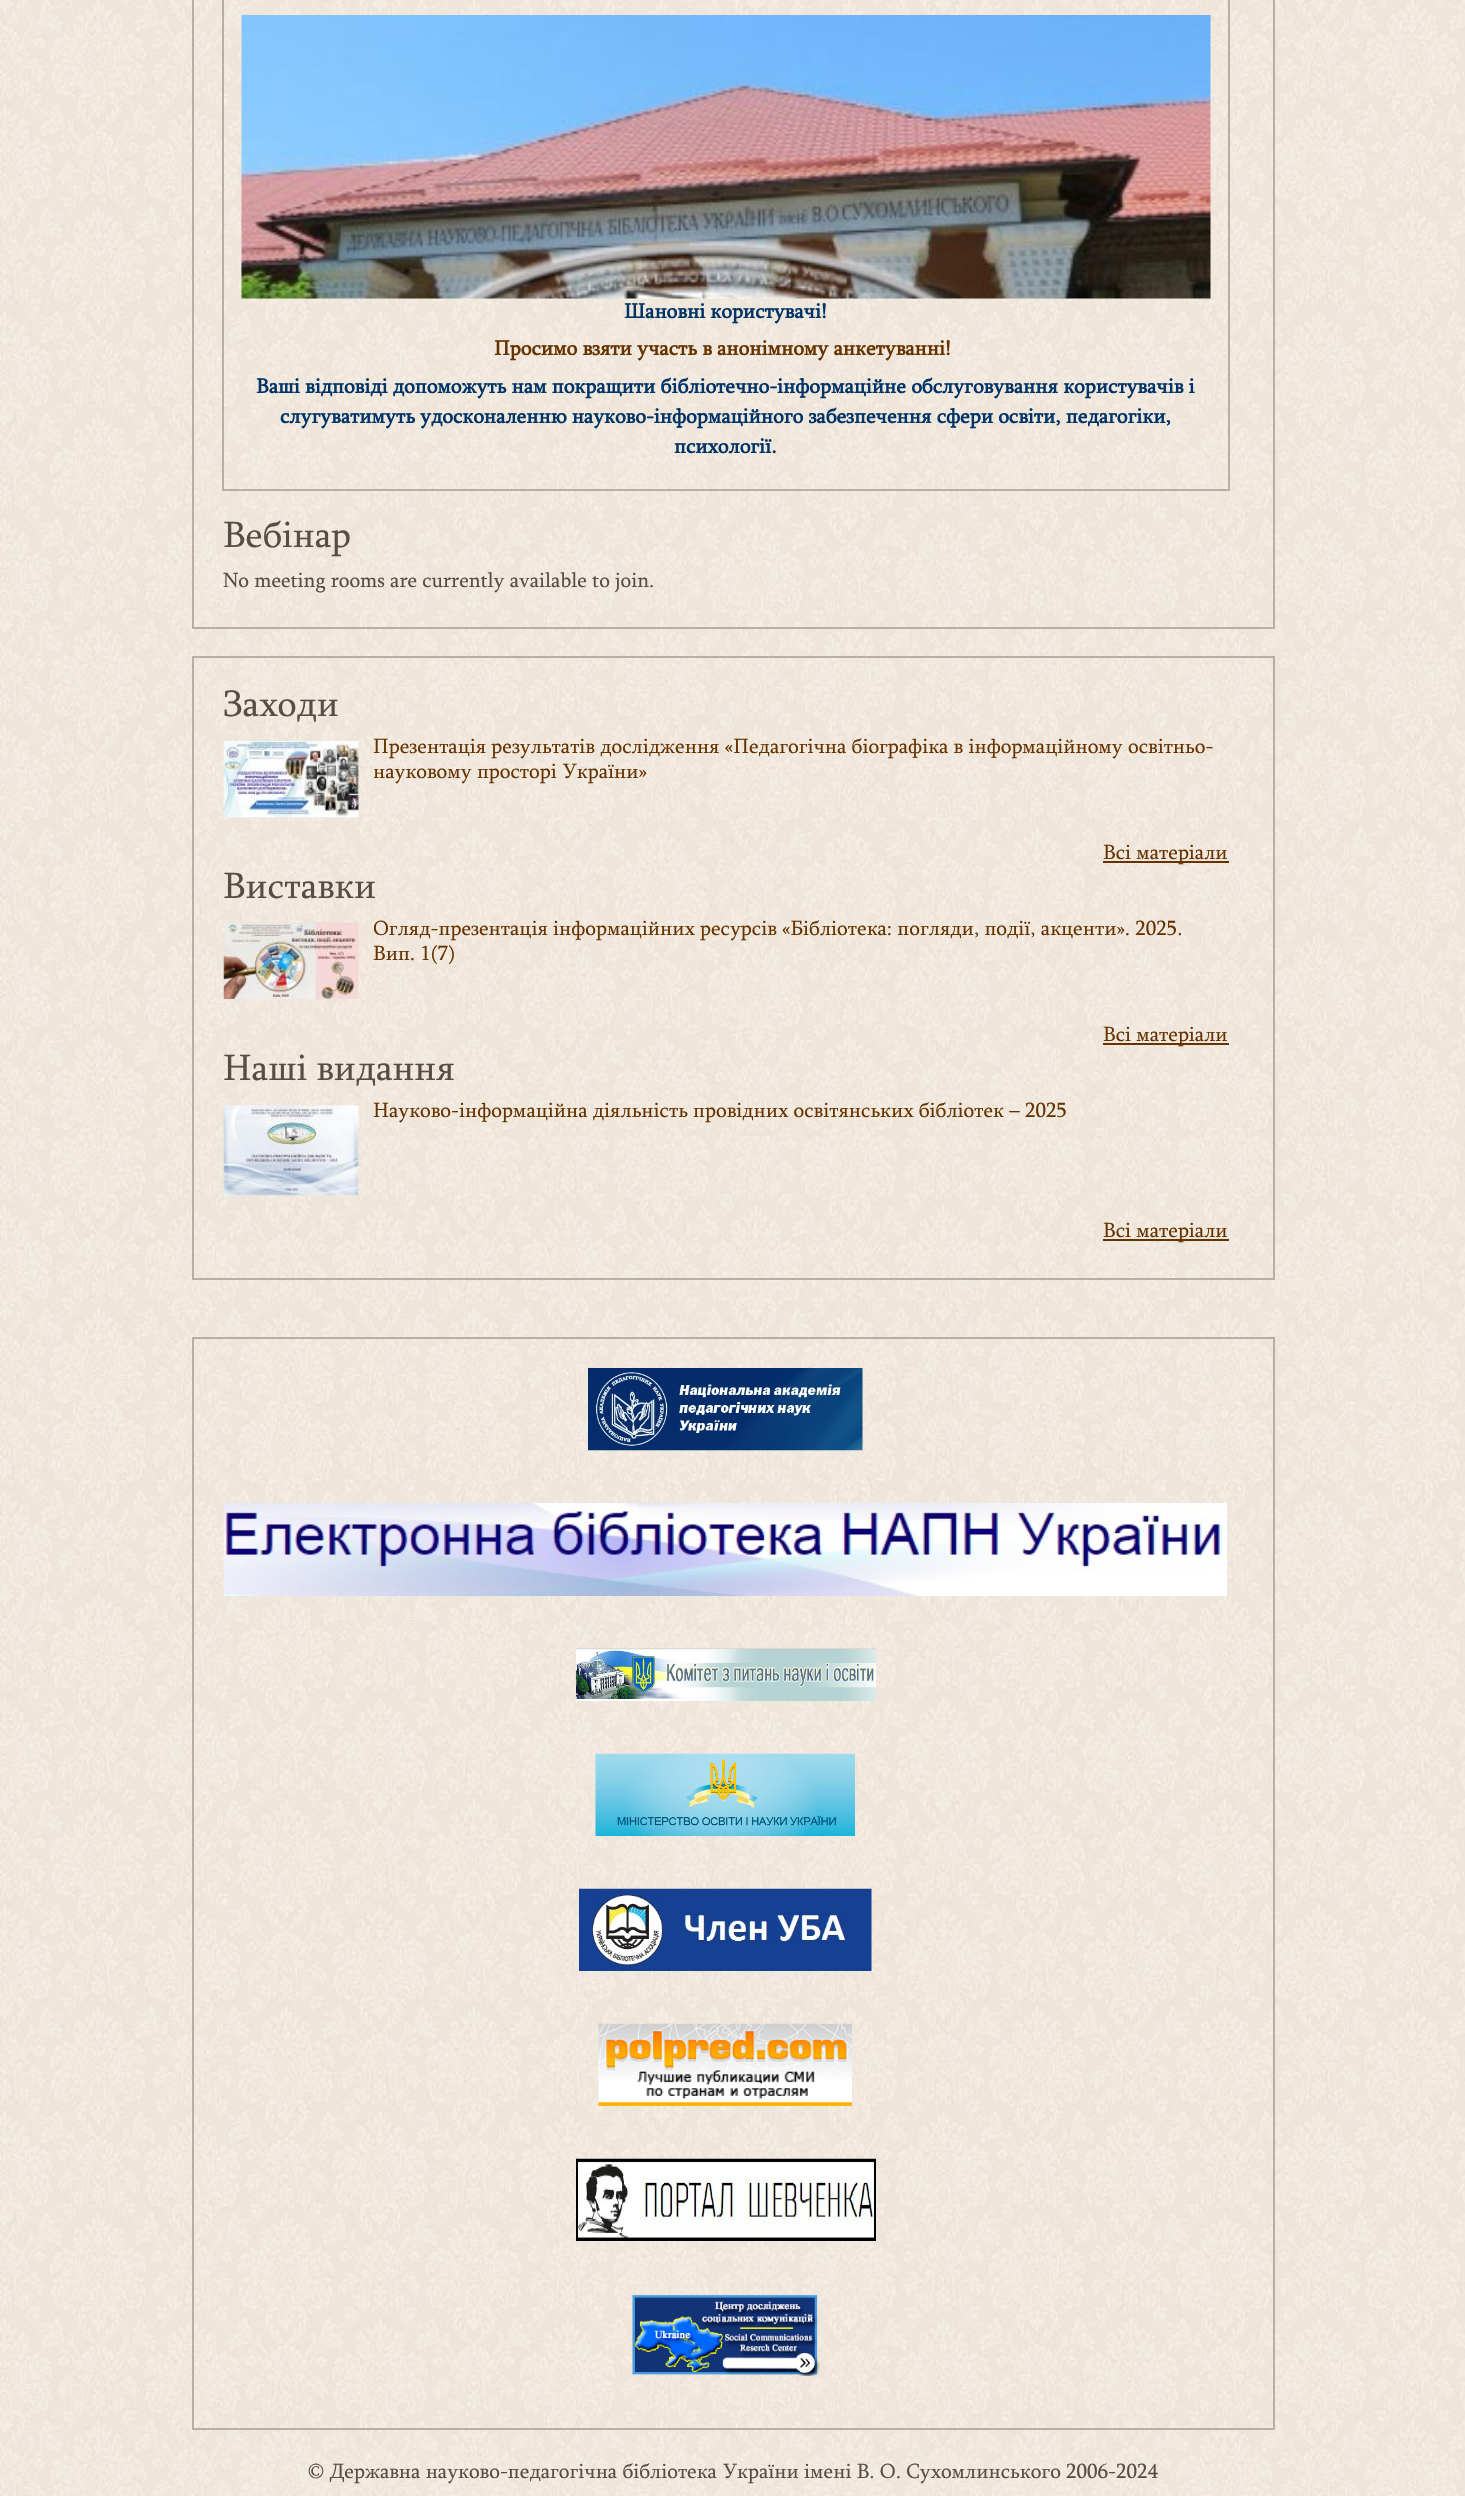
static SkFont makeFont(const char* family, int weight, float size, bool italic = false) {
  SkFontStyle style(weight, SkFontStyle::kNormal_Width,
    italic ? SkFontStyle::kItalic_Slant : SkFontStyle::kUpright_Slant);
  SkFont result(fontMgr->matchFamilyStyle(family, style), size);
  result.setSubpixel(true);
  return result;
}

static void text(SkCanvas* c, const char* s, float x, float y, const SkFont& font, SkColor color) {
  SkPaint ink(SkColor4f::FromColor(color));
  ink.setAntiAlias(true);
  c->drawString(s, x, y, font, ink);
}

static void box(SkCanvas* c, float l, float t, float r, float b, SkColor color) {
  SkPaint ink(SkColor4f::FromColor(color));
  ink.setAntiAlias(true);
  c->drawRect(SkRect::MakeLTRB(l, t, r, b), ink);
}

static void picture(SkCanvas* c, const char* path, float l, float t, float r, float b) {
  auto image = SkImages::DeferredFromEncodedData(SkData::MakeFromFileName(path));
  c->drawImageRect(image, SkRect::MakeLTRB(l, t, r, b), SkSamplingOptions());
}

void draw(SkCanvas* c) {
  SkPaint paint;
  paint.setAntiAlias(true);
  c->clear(0xffffffff);
  picture(c, "img_01.png", 0, 0, 1465, 2496);
  picture(c, "img_02.png", 241, 15, 1211, 299);
  paint.setStyle(SkPaint::kStroke_Style);
  paint.setStrokeWidth(2);
  paint.setColor(0xffb7afa4);
  c->drawRect(SkRect::MakeLTRB(223, -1, 1229, 490), paint);
  c->drawRect(SkRect::MakeLTRB(193, -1, 1274, 628), paint);
  SkFont face1 = makeFont("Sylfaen", 700, 21);
  text(c, "Шановні користувачі!", 624, 318, face1, 0xff003366);
  text(c, "Просимо взяти участь в анонімному анкетуванні!", 494, 355, face1, 0xff663300);
  text(c, "Ваші відповіді допоможуть нам покращити бібліотечно-інформаційне обслуговування користувачів і", 256, 393, face1, 0xff003366);
  text(c, "слугуватимуть удосконаленню науково-інформаційного забезпечення сфери освіти, педагогіки,", 280, 423, face1, 0xff003366);
  text(c, "психології.", 674, 453, face1, 0xff003366);
  SkFont face2 = makeFont("Sylfaen", 400, 37.5f);
  text(c, "Вебінар", 223, 547, face2, 0xff564d44);
  SkFont face3 = makeFont("Sylfaen", 400, 21);
  text(c, "No meeting rooms are currently available to join.", 223, 587, face3, 0xff564d44);
  box(c, 1103, 861, 1229, 863, 0xff663300);
  box(c, 1103, 1043, 1229, 1045, 0xff663300);
  box(c, 1103, 1239, 1229, 1241, 0xff663300);
  c->drawRect(SkRect::MakeLTRB(193, 657, 1274, 1279), paint);
  text(c, "Заходи", 223, 716, face2, 0xff564d44);
  picture(c, "img_03.png", 223, 741, 359, 818);
  text(c, "Презентація результатів дослідження «Педагогічна біографіка в інформаційному освітньо-", 373, 753, face3, 0xff663300);
  c->save();
  c->clipRect(SkRect::MakeLTRB(374, 737, 1229, 794));
  text(c, "науковому просторі України»", 373, 778, face3, 0xff663300);
  c->restore();
  text(c, "Всі матеріали", 1103, 859, face3, 0xff663300);
  text(c, "Виставки", 223, 898, face2, 0xff564d44);
  picture(c, "img_04.png", 223, 922, 359, 999);
  c->save();
  c->clipRect(SkRect::MakeLTRB(374, 918, 1229, 977));
  text(c, "Огляд-презентація інформаційних ресурсів «Бібліотека: погляди, події, акценти». 2025.", 373, 935, face3, 0xff663300);
  c->restore();
  text(c, "Вип. 1(7)", 373, 960, face3, 0xff663300);
  text(c, "Всі матеріали", 1103, 1041, face3, 0xff663300);
  text(c, "Наші видання", 223, 1080, face2, 0xff564d44);
  picture(c, "img_05.png", 223, 1105, 359, 1196);
  text(c, "Науково-інформаційна діяльність провідних освітянських бібліотек – 2025", 373, 1117, face3, 0xff663300);
  text(c, "Всі матеріали", 1103, 1237, face3, 0xff663300);
  c->drawRect(SkRect::MakeLTRB(193, 1338, 1274, 2429), paint);
  picture(c, "img_06.png", 588, 1368, 863, 1451);
  picture(c, "img_07.png", 223, 1503, 1227, 1596);
  picture(c, "img_08.png", 576, 1648, 876, 1701);
  picture(c, "img_09.png", 595, 1753, 855, 1836);
  picture(c, "img_10.png", 579, 1888, 872, 1971);
  picture(c, "img_11.png", 598, 2023, 852, 2106);
  picture(c, "img_12.png", 576, 2158, 876, 2241);
  picture(c, "img_13.png", 632, 2295, 820, 2376);
  text(c, "© Державна науково-педагогічна бібліотека України імені В. О. Сухомлинського 2006-2024", 308, 2478, face3, 0xff564d44);
}
